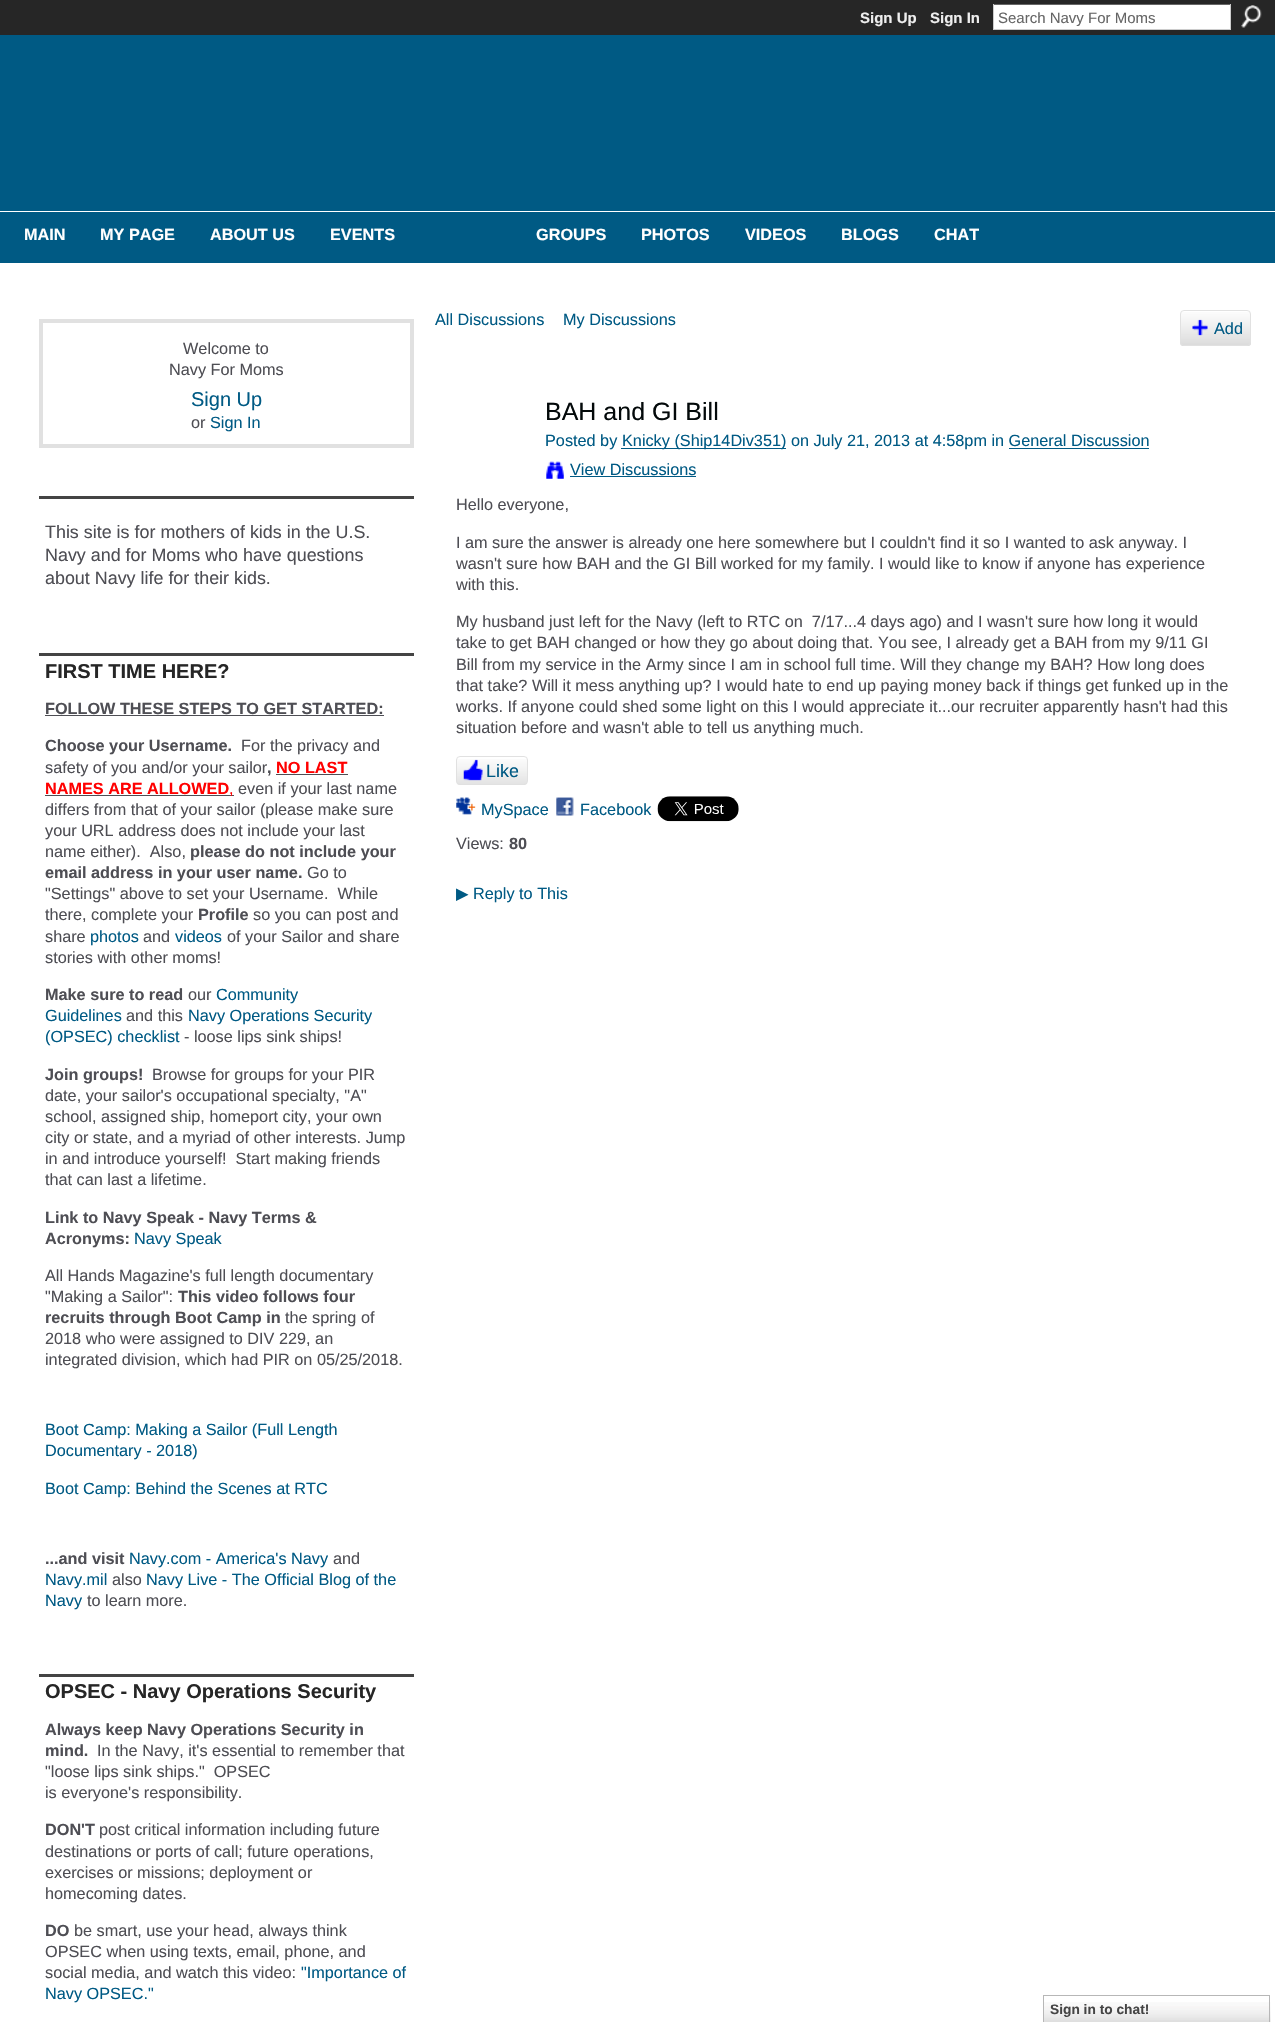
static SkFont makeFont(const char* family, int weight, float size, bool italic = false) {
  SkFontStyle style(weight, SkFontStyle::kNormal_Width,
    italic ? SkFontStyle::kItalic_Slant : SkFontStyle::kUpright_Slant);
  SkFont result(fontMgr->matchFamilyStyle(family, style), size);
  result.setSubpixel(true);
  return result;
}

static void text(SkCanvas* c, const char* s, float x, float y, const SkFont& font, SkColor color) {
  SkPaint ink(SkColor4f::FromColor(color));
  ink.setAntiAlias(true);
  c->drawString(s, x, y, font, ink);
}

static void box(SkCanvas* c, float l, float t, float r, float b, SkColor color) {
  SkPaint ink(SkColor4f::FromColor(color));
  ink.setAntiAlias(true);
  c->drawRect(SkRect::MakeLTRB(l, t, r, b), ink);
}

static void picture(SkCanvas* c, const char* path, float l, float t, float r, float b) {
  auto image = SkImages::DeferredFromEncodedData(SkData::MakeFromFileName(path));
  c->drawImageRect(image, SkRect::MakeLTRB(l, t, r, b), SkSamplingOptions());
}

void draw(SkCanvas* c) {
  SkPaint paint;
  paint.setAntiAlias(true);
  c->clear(0xffffffff);
  box(c, 0, 0, 1275, 35, 0xff262626);
  SkFont face1 = makeFont("Liberation Sans", 700, 15);
  text(c, "Sign Up", 860, 23, face1, 0xffeeeeee);
  text(c, "Sign In", 930, 23, face1, 0xffeeeeee);
  box(c, 994, 5, 1230, 29, 0xffffffff);
  box(c, 993, 4, 1231, 5, 0xff666666);
  box(c, 1230, 4, 1231, 30, 0xffcccccc);
  box(c, 993, 29, 1231, 30, 0xffcccccc);
  box(c, 993, 4, 994, 30, 0xffcccccc);
  SkFont face2 = makeFont("Liberation Sans", 400, 15);
  text(c, "Search Navy For Moms", 998, 23, face2, 0xff666666);
  picture(c, "img_01.png", 1241, 5, 1262, 28);
  box(c, 0, 35, 1275, 263, 0xff005a84);
  box(c, 0, 211, 1275, 212, 0xffffffff);
  SkFont face3 = makeFont("Liberation Sans", 700, 16.25f);
  text(c, "MAIN", 24, 240, face3, 0xffffffff);
  text(c, "MY PAGE", 100, 240, face3, 0xffffffff);
  text(c, "ABOUT US", 210, 240, face3, 0xffffffff);
  text(c, "EVENTS", 330, 240, face3, 0xffffffff);
  text(c, "GROUPS", 536, 240, face3, 0xffffffff);
  text(c, "PHOTOS", 641, 240, face3, 0xffffffff);
  text(c, "VIDEOS", 745, 240, face3, 0xffffffff);
  text(c, "BLOGS", 841, 240, face3, 0xffffffff);
  text(c, "CHAT", 934, 240, face3, 0xffffffff);
  paint.setStyle(SkPaint::kStroke_Style);
  paint.setStrokeWidth(4);
  paint.setColor(0xffe1e1e1);
  c->drawRect(SkRect::MakeLTRB(41, 321, 412, 446), paint);
  SkFont face4 = makeFont("Liberation Sans", 400, 16.25f);
  text(c, "Welcome to", 183, 354, face4, 0xff4e4e54);
  text(c, "Navy For Moms", 169, 375, face4, 0xff4e4e54);
  SkFont face5 = makeFont("Liberation Sans", 400, 20);
  text(c, "Sign Up", 191, 406, face5, 0xff005a84);
  text(c, "or", 191, 428, face4, 0xff4e4e54);
  text(c, "Sign In", 210, 428, face4, 0xff005a84);
  box(c, 39, 496, 414, 499, 0xff444444);
  SkFont face6 = makeFont("Liberation Sans", 400, 17.9f);
  text(c, "This site is for mothers of kids in the U.S.", 45, 538, face6, 0xff4e4e54);
  text(c, "Navy and for Moms who have questions", 45, 561, face6, 0xff4e4e54);
  text(c, "about Navy life for their kids.", 45, 584, face6, 0xff4e4e54);
  box(c, 39, 653, 414, 656, 0xff444444);
  SkFont face7 = makeFont("Liberation Sans", 700, 20);
  text(c, "FIRST TIME HERE?", 45, 678, face7, 0xff262626);
  text(c, "FOLLOW THESE STEPS TO GET STARTED:", 45, 714, face3, 0xff4e4e54);
  box(c, 45, 715, 384, 716, 0xff4e4e54);
  text(c, "Choose your Username.", 45, 751, face3, 0xff4e4e54);
  text(c, "For the privacy and", 241, 751, face4, 0xff4e4e54);
  text(c, "safety of you and/or your sailor", 45, 773, face4, 0xff4e4e54);
  text(c, ",", 267, 773, face3, 0xff4e4e54);
  text(c, "NO LAST", 276, 773, face3, 0xffff0000);
  box(c, 276, 774, 348, 775, 0xff4e4e54);
  text(c, "NAMES ARE ALLOWED", 45, 794, face3, 0xffff0000);
  box(c, 45, 795, 234, 796, 0xff4e4e54);
  text(c, ",", 229, 794, face4, 0xffff0000);
  text(c, "even if your last name", 238, 794, face4, 0xff4e4e54);
  text(c, "differs from that of your sailor (please make sure", 45, 815, face4, 0xff4e4e54);
  text(c, "your URL address does not include your last", 45, 836, face4, 0xff4e4e54);
  text(c, "name either).  Also,", 45, 857, face4, 0xff4e4e54);
  text(c, "please do not include your", 190, 857, face3, 0xff4e4e54);
  text(c, "email address in your user name.", 45, 878, face3, 0xff4e4e54);
  text(c, "Go to", 307, 878, face4, 0xff4e4e54);
  text(c, "\"Settings\" above to set your Username.  While", 45, 899, face4, 0xff4e4e54);
  text(c, "there, complete your", 45, 920, face4, 0xff4e4e54);
  text(c, "Profile", 198, 920, face3, 0xff4e4e54);
  text(c, "so you can post and", 253, 920, face4, 0xff4e4e54);
  text(c, "share", 45, 942, face4, 0xff4e4e54);
  text(c, "photos", 90, 942, face4, 0xff005a84);
  text(c, "and", 143, 942, face4, 0xff4e4e54);
  text(c, "videos", 175, 942, face4, 0xff005a84);
  text(c, "of your Sailor and share", 227, 942, face4, 0xff4e4e54);
  text(c, "stories with other moms!", 45, 963, face4, 0xff4e4e54);
  text(c, "Make sure to read", 45, 1000, face3, 0xff4e4e54);
  text(c, "our", 188, 1000, face4, 0xff4e4e54);
  text(c, "Community", 216, 1000, face4, 0xff005a84);
  text(c, "Guidelines", 45, 1021, face4, 0xff005a84);
  text(c, "and this", 126, 1021, face4, 0xff4e4e54);
  text(c, "Navy Operations Security", 188, 1021, face4, 0xff005a84);
  text(c, "(OPSEC) checklist", 45, 1042, face4, 0xff005a84);
  text(c, "- loose lips sink ships!", 184, 1042, face4, 0xff4e4e54);
  text(c, "Join groups!", 45, 1080, face3, 0xff4e4e54);
  text(c, "Browse for groups for your PIR", 152, 1080, face4, 0xff4e4e54);
  text(c, "date, your sailor's occupational specialty, \"A\"", 45, 1101, face4, 0xff4e4e54);
  text(c, "school, assigned ship, homeport city, your own", 45, 1122, face4, 0xff4e4e54);
  text(c, "city or state, and a myriad of other interests. Jump", 45, 1143, face4, 0xff4e4e54);
  text(c, "in and introduce yourself!  Start making friends", 45, 1164, face4, 0xff4e4e54);
  text(c, "that can last a lifetime.", 45, 1185, face4, 0xff4e4e54);
  text(c, "Link to Navy Speak - Navy Terms &", 45, 1223, face3, 0xff4e4e54);
  text(c, "Acronyms:", 45, 1244, face3, 0xff4e4e54);
  text(c, "Navy Speak", 134, 1244, face4, 0xff005a84);
  text(c, "All Hands Magazine's full length documentary", 45, 1281, face4, 0xff4e4e54);
  text(c, "\"Making a Sailor\":", 45, 1302, face4, 0xff4e4e54);
  text(c, "This video follows four", 178, 1302, face3, 0xff4e4e54);
  text(c, "recruits through Boot Camp in", 45, 1323, face3, 0xff4e4e54);
  text(c, "the spring of", 285, 1323, face4, 0xff4e4e54);
  text(c, "2018 who were assigned to DIV 229, an", 45, 1344, face4, 0xff4e4e54);
  text(c, "integrated division, which had PIR on 05/25/2018.", 45, 1365, face4, 0xff4e4e54);
  text(c, "Boot Camp: Making a Sailor (Full Length", 45, 1435, face4, 0xff005a84);
  text(c, "Documentary - 2018)", 45, 1456, face4, 0xff005a84);
  text(c, "Boot Camp: Behind the Scenes at RTC", 45, 1494, face4, 0xff005a84);
  text(c, "...and visit", 45, 1564, face3, 0xff4e4e54);
  text(c, "Navy.com - America's Navy", 129, 1564, face4, 0xff005a84);
  text(c, "and", 333, 1564, face4, 0xff4e4e54);
  text(c, "Navy.mil", 45, 1585, face4, 0xff005a84);
  text(c, "also", 112, 1585, face4, 0xff4e4e54);
  text(c, "Navy Live - The Official Blog of the", 146, 1585, face4, 0xff005a84);
  text(c, "Navy", 45, 1606, face4, 0xff005a84);
  text(c, "to learn more.", 87, 1606, face4, 0xff4e4e54);
  box(c, 39, 1674, 414, 1677, 0xff444444);
  text(c, "OPSEC - Navy Operations Security", 45, 1698, face7, 0xff262626);
  text(c, "Always keep Navy Operations Security in", 45, 1735, face3, 0xff4e4e54);
  text(c, "mind.", 45, 1756, face3, 0xff4e4e54);
  text(c, "In the Navy, it's essential to remember that", 97, 1756, face4, 0xff4e4e54);
  text(c, "\"loose lips sink ships.\"  OPSEC", 45, 1777, face4, 0xff4e4e54);
  text(c, "is everyone's responsibility.", 45, 1798, face4, 0xff4e4e54);
  text(c, "DON'T", 45, 1835, face3, 0xff4e4e54);
  text(c, "post critical information including future", 99, 1835, face4, 0xff4e4e54);
  text(c, "destinations or ports of call; future operations,", 45, 1857, face4, 0xff4e4e54);
  text(c, "exercises or missions; deployment or", 45, 1878, face4, 0xff4e4e54);
  text(c, "homecoming dates.", 45, 1899, face4, 0xff4e4e54);
  text(c, "DO", 45, 1936, face3, 0xff4e4e54);
  text(c, "be smart, use your head, always think", 74, 1936, face4, 0xff4e4e54);
  text(c, "OPSEC when using texts, email, phone, and", 45, 1957, face4, 0xff4e4e54);
  text(c, "social media, and watch this video:", 45, 1978, face4, 0xff4e4e54);
  text(c, "\"Importance of", 301, 1978, face4, 0xff005a84);
  text(c, "Navy OPSEC.\"", 45, 1999, face4, 0xff005a84);
  text(c, "All Discussions", 435, 325, face4, 0xff005a84);
  text(c, "My Discussions", 563, 325, face4, 0xff005a84);
  picture(c, "img_02.png", 1180, 312, 1251, 346);
  paint.setStrokeWidth(1);
  c->drawRoundRect(SkRect::MakeLTRB(1180.5f, 310.5f, 1250.5f, 345.5f), 3.5f, 3.5f, paint);
  picture(c, "img_03.png", 1192, 319, 1208, 336);
  text(c, "Add", 1214, 334, face4, 0xff005a84);
  SkFont face8 = makeFont("Liberation Sans", 400, 25);
  text(c, "BAH and GI Bill", 545, 420, face8, 0xff03090a);
  text(c, "Posted by", 545, 446, face4, 0xff005a84);
  box(c, 621, 448, 786, 449, 0xff005a84);
  text(c, "Knicky (Ship14Div351) on July 21, 2013 at 4:58pm in General Discussion", 622, 446, face4, 0xff005a84);
  box(c, 1009, 448, 1149, 449, 0xff005a84);
  picture(c, "img_04.png", 546, 461, 564, 479);
  text(c, "View Discussions", 570, 475, face4, 0xff005a84);
  box(c, 570, 476, 696, 477, 0xff005a84);
  text(c, "Hello everyone,", 456, 510, face4, 0xff4e4e54);
  text(c, "I am sure the answer is already one here somewhere but I couldn't find it so I wanted to ask anyway. I", 456, 548, face4, 0xff4e4e54);
  text(c, "wasn't sure how BAH and the GI Bill worked for my family. I would like to know if anyone has experience", 456, 569, face4, 0xff4e4e54);
  text(c, "with this.", 456, 590, face4, 0xff4e4e54);
  text(c, "My husband just left for the Navy (left to RTC on  7/17...4 days ago) and I wasn't sure how long it would", 456, 627, face4, 0xff4e4e54);
  text(c, "take to get BAH changed or how they go about doing that. You see, I already get a BAH from my 9/11 GI", 456, 648, face4, 0xff4e4e54);
  text(c, "Bill from my service in the Army since I am in school full time. Will they change my BAH? How long does", 456, 670, face4, 0xff4e4e54);
  text(c, "that take? Will it mess anything up? I would hate to end up paying money back if things get funked up in the", 456, 691, face4, 0xff4e4e54);
  text(c, "works. If anyone could shed some light on this I would appreciate it...our recruiter apparently hasn't had this", 456, 712, face4, 0xff4e4e54);
  text(c, "situation before and wasn't able to tell us anything much.", 456, 733, face4, 0xff4e4e54);
  picture(c, "img_05.png", 456, 759, 528, 785);
  c->drawRoundRect(SkRect::MakeLTRB(456.5f, 756.5f, 527.5f, 784.5f), 3.5f, 3.5f, paint);
  picture(c, "img_06.png", 463, 759, 483, 781);
  text(c, "Like", 486, 777, face6, 0xff005a84);
  picture(c, "img_07.png", 456, 797, 476, 815);
  text(c, "MySpace", 481, 815, face4, 0xff005a84);
  picture(c, "img_08.png", 556, 797, 574, 816);
  text(c, "Facebook", 580, 815, face4, 0xff005a84);
  picture(c, "img_09.png", 657, 796, 739, 822);
  text(c, "Views:", 456, 849, face4, 0xff4e4e54);
  text(c, "80", 509, 849, face3, 0xff4e4e54);
  SkFont face9 = makeFont("DejaVu Sans", 400, 16.25f);
  text(c, "▶", 456, 899, face9, 0xff005a84);
  text(c, "Reply to This", 473, 899, face4, 0xff005a84);
  picture(c, "img_10.png", 1044, 2002, 1271, 2022);
  paint.setColor(0xffb7b7b7);
  c->drawRect(SkRect::MakeLTRB(1043.5f, 1995.5f, 1269.5f, 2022.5f), paint);
  SkFont face10 = makeFont("Liberation Sans", 700, 13.75f);
  text(c, "Sign in to chat!", 1050, 2014, face10, 0xff454545);
}
